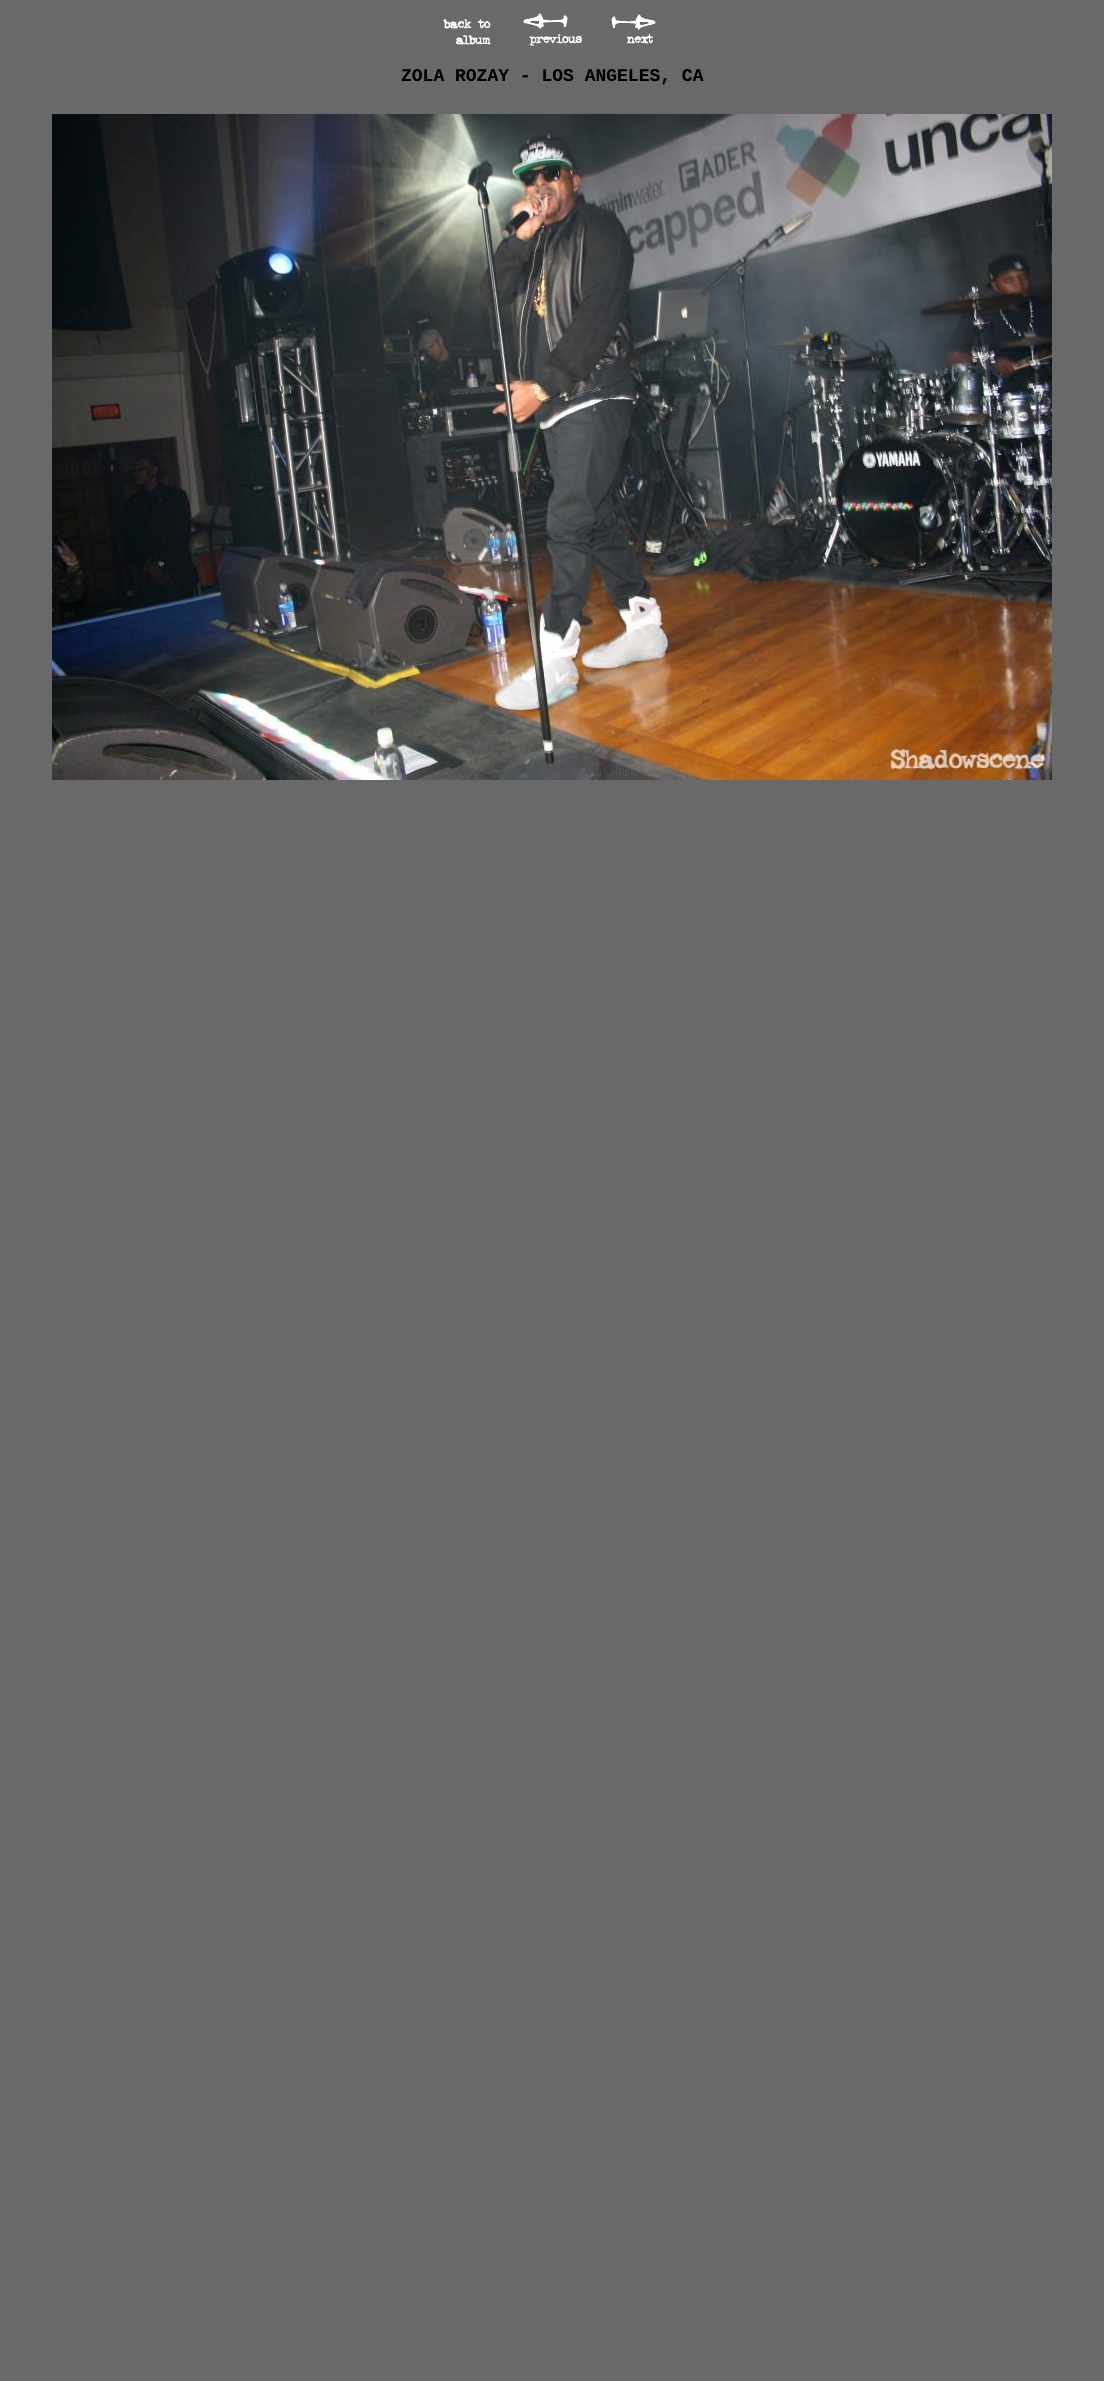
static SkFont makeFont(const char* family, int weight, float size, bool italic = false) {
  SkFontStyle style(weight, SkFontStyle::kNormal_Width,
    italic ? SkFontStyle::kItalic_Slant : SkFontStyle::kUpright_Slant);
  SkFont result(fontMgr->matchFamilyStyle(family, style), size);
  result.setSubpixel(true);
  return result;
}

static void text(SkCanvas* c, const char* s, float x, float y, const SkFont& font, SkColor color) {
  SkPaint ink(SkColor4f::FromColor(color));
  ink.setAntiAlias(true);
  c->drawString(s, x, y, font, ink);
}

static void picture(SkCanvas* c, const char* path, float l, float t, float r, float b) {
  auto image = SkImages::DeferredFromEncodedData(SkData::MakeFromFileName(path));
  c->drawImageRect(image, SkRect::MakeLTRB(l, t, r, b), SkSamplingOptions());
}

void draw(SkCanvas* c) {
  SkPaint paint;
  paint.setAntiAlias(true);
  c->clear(0xff696969);
  picture(c, "img_01.png", 443, 18, 491, 45);
  picture(c, "img_02.png", 523, 13, 582, 46);
  picture(c, "img_03.png", 611, 14, 656, 44);
  SkFont face1 = makeFont("Liberation Mono", 700, 18);
  text(c, "ZOLA ROZAY - LOS ANGELES, CA", 401, 81, face1, 0xff000000);
  picture(c, "img_04.png", 52, 114, 1052, 780);
}
